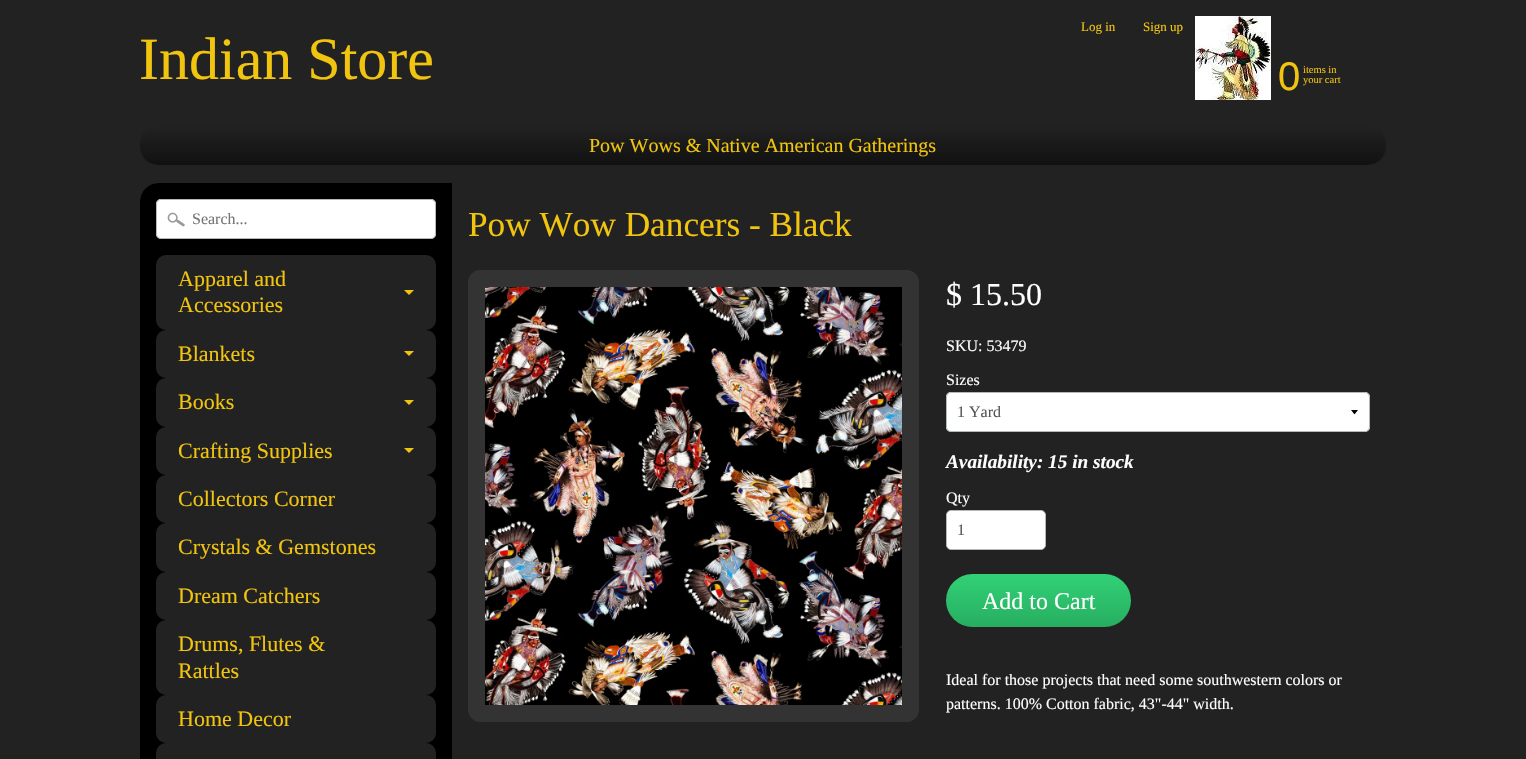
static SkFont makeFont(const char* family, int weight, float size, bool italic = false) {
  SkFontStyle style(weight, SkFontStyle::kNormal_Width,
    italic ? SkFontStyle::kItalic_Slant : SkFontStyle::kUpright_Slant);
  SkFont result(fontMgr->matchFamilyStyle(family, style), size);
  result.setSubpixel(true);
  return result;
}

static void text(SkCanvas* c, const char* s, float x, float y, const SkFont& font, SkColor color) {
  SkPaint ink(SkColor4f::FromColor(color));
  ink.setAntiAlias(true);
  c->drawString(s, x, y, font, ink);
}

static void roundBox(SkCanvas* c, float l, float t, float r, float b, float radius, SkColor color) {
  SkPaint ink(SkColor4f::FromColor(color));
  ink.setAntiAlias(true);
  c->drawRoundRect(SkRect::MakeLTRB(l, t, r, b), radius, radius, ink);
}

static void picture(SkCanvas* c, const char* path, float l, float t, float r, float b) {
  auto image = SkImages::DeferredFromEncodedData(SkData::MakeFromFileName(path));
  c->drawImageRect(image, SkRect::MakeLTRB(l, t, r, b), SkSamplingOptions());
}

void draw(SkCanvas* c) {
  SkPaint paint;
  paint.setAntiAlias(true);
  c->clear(0xff222222);
  SkFont face1 = makeFont("Liberation Serif", 400, 13);
  text(c, "Log in", 1081, 31, face1, 0xfff1c40f);
  text(c, "Sign up", 1143, 31, face1, 0xfff1c40f);
  SkFont face2 = makeFont("Liberation Serif", 400, 60);
  text(c, "Indian Store", 139, 79, face2, 0xfff1c40f);
  picture(c, "img_01.png", 1195, 16, 1271, 100);
  SkFont face3 = makeFont("Liberation Sans", 400, 40);
  text(c, "0", 1278, 90, face3, 0xfff1c40f);
  SkFont face4 = makeFont("Liberation Serif", 400, 10.5f);
  text(c, "items in", 1303, 73, face4, 0xfff1c40f);
  text(c, "your cart", 1303, 83, face4, 0xfff1c40f);
  c->save();
  c->clipPath(SkPathBuilder().moveTo(159, 124).lineTo(1367, 124).cubicTo(1378, 124, 1387, 133, 1387, 144).lineTo(1387, 146).cubicTo(1387, 157, 1378, 166, 1367, 166).lineTo(159, 166).cubicTo(148, 166, 139, 157, 139, 146).lineTo(139, 144).cubicTo(139, 133, 148, 124, 159, 124).close().detach(), true);
  {
    const SkColor colors[] = {0xff222222, 0xff111111};
    const float stops[] = {0, 1};
    const SkPoint ends[] = {{763, 125}, {763, 165}};
    paint.setShader(SkGradientShader::MakeLinear(ends, colors, stops, 2, SkTileMode::kClamp));
    paint.setAlpha(255);
  }
  c->drawRect(SkRect::MakeLTRB(139, 125, 1387, 165), paint);
  c->restore();
  paint.setStyle(SkPaint::kStroke_Style);
  paint.setStrokeWidth(1);
  paint.setShader(nullptr);
  paint.setColor(0xff222222);
  c->drawRoundRect(SkRect::MakeLTRB(139.5f, 124.5f, 1386.5f, 165.5f), 19.5f, 19.5f, paint);
  SkFont face5 = makeFont("Liberation Serif", 400, 20);
  text(c, "Pow Wows & Native American Gatherings", 589, 152, face5, 0xfff1c40f);
  paint.setStyle(SkPaint::kFill_Style);
  paint.setColor(0xff000000);
  c->drawPath(SkPathBuilder().moveTo(159, 183).lineTo(452, 183).lineTo(452, 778).lineTo(159, 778).cubicTo(148.5f, 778, 140, 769.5f, 140, 759).lineTo(140, 202).cubicTo(140, 191.5f, 148.5f, 183, 159, 183).close().detach(), paint);
  roundBox(c, 156, 199, 436, 239, 5, 0xffffffff);
  picture(c, "img_02.png", 167, 212, 185, 227);
  paint.setStyle(SkPaint::kStroke_Style);
  paint.setColor(0xffb2b9bd);
  c->drawRoundRect(SkRect::MakeLTRB(156.5f, 199.5f, 435.5f, 238.5f), 4.5f, 4.5f, paint);
  SkFont face6 = makeFont("Liberation Serif", 400, 16);
  text(c, "Search...", 192, 224, face6, 0xff757575);
  roundBox(c, 156, 255, 436, 330, 10, 0xff222222);
  SkFont face7 = makeFont("Liberation Serif", 400, 22);
  text(c, "Apparel and", 178, 286, face7, 0xfff1c40f);
  paint.setStyle(SkPaint::kFill_Style);
  paint.setColor(0xfff1c40f);
  c->drawPath(SkPathBuilder().moveTo(404, 290).lineTo(414, 290).lineTo(409, 295).close().detach(), paint);
  text(c, "Accessories", 178, 312, face7, 0xfff1c40f);
  roundBox(c, 156, 330, 436, 378, 10, 0xff222222);
  text(c, "Blankets", 178, 361, face7, 0xfff1c40f);
  c->drawPath(SkPathBuilder().moveTo(404, 351).lineTo(414, 351).lineTo(409, 356).close().detach(), paint);
  roundBox(c, 156, 378, 436, 427, 10, 0xff222222);
  text(c, "Books", 178, 409, face7, 0xfff1c40f);
  c->drawPath(SkPathBuilder().moveTo(404, 400).lineTo(414, 400).lineTo(409, 405).close().detach(), paint);
  roundBox(c, 156, 427, 436, 475, 10, 0xff222222);
  text(c, "Crafting Supplies", 178, 458, face7, 0xfff1c40f);
  c->drawPath(SkPathBuilder().moveTo(404, 448).lineTo(414, 448).lineTo(409, 453).close().detach(), paint);
  roundBox(c, 156, 475, 436, 523, 10, 0xff222222);
  text(c, "Collectors Corner", 178, 506, face7, 0xfff1c40f);
  roundBox(c, 156, 523, 436, 572, 10, 0xff222222);
  text(c, "Crystals & Gemstones", 178, 554, face7, 0xfff1c40f);
  roundBox(c, 156, 572, 436, 620, 10, 0xff222222);
  text(c, "Dream Catchers", 178, 603, face7, 0xfff1c40f);
  roundBox(c, 156, 620, 436, 695, 10, 0xff222222);
  text(c, "Drums, Flutes &", 178, 651, face7, 0xfff1c40f);
  text(c, "Rattles", 178, 678, face7, 0xfff1c40f);
  roundBox(c, 156, 695, 436, 743, 10, 0xff222222);
  text(c, "Home Decor", 178, 726, face7, 0xfff1c40f);
  roundBox(c, 156, 743, 436, 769, 10, 0xff222222);
  SkFont face8 = makeFont("Liberation Serif", 400, 35.25f);
  text(c, "Pow Wow Dancers - Black", 468, 236, face8, 0xfff1c40f);
  paint.setColor(0xff333333);
  c->drawRoundRect(SkRect::MakeLTRB(468.5f, 270.5f, 918.5f, 721.5f), 11.5f, 11.5f, paint);
  paint.setStyle(SkPaint::kStroke_Style);
  c->drawRoundRect(SkRect::MakeLTRB(468.5f, 270.5f, 918.5f, 721.5f), 11.5f, 11.5f, paint);
  picture(c, "img_03.png", 485, 287, 902, 705);
  SkFont face9 = makeFont("Liberation Serif", 400, 32);
  text(c, "$ 15.50", 946, 305, face9, 0xffffffff);
  text(c, "SKU: 53479", 946, 351, face6, 0xffffffff);
  text(c, "Sizes", 946, 385, face6, 0xffffffff);
  roundBox(c, 946, 392, 1370, 432, 5, 0xffffffff);
  paint.setStyle(SkPaint::kFill_Style);
  paint.setColor(0xff000000);
  c->drawPath(SkPathBuilder().moveTo(1351, 410).cubicTo(1355.5f, 415.5f, 1353.5f, 415.5f, 1358, 410).close().detach(), paint);
  paint.setStyle(SkPaint::kStroke_Style);
  paint.setColor(0xffb2b9bd);
  c->drawRoundRect(SkRect::MakeLTRB(946.5f, 392.5f, 1369.5f, 431.5f), 4.5f, 4.5f, paint);
  text(c, "1 Yard", 957, 417, face6, 0xff555555);
  SkFont face10 = makeFont("Liberation Serif", 700, 19.25f, true);
  text(c, "Availability: 15 in stock", 946, 468, face10, 0xffffffff);
  text(c, "Qty", 946, 503, face6, 0xffffffff);
  paint.setStyle(SkPaint::kFill_Style);
  paint.setColor(0xffffffff);
  c->drawRoundRect(SkRect::MakeLTRB(946.5f, 510.5f, 1045.5f, 549.5f), 4.5f, 4.5f, paint);
  paint.setStyle(SkPaint::kStroke_Style);
  paint.setColor(0xffb2b9bd);
  c->drawRoundRect(SkRect::MakeLTRB(946.5f, 510.5f, 1045.5f, 549.5f), 4.5f, 4.5f, paint);
  text(c, "1", 957, 535, face6, 0xff555555);
  paint.setStyle(SkPaint::kFill_Style);
  {
    const SkColor colors[] = {0xff32d177, 0xff27ae60};
    const float stops[] = {0, 1};
    const SkPoint ends[] = {{1039, 574}, {1039, 627}};
    paint.setShader(SkGradientShader::MakeLinear(ends, colors, stops, 2, SkTileMode::kClamp));
    paint.setAlpha(255);
  }
  c->drawRoundRect(SkRect::MakeLTRB(946, 574, 1131, 627), 26.5f, 26.5f, paint);
  SkFont face11 = makeFont("Liberation Serif", 400, 24);
  text(c, "Add to Cart", 982, 609, face11, 0xffffffff);
  text(c, "Ideal for those projects that need some southwestern colors or", 946, 685, face6, 0xffffffff);
  text(c, "patterns. 100% Cotton fabric, 43\"-44\" width.", 946, 709, face6, 0xffffffff);
}
